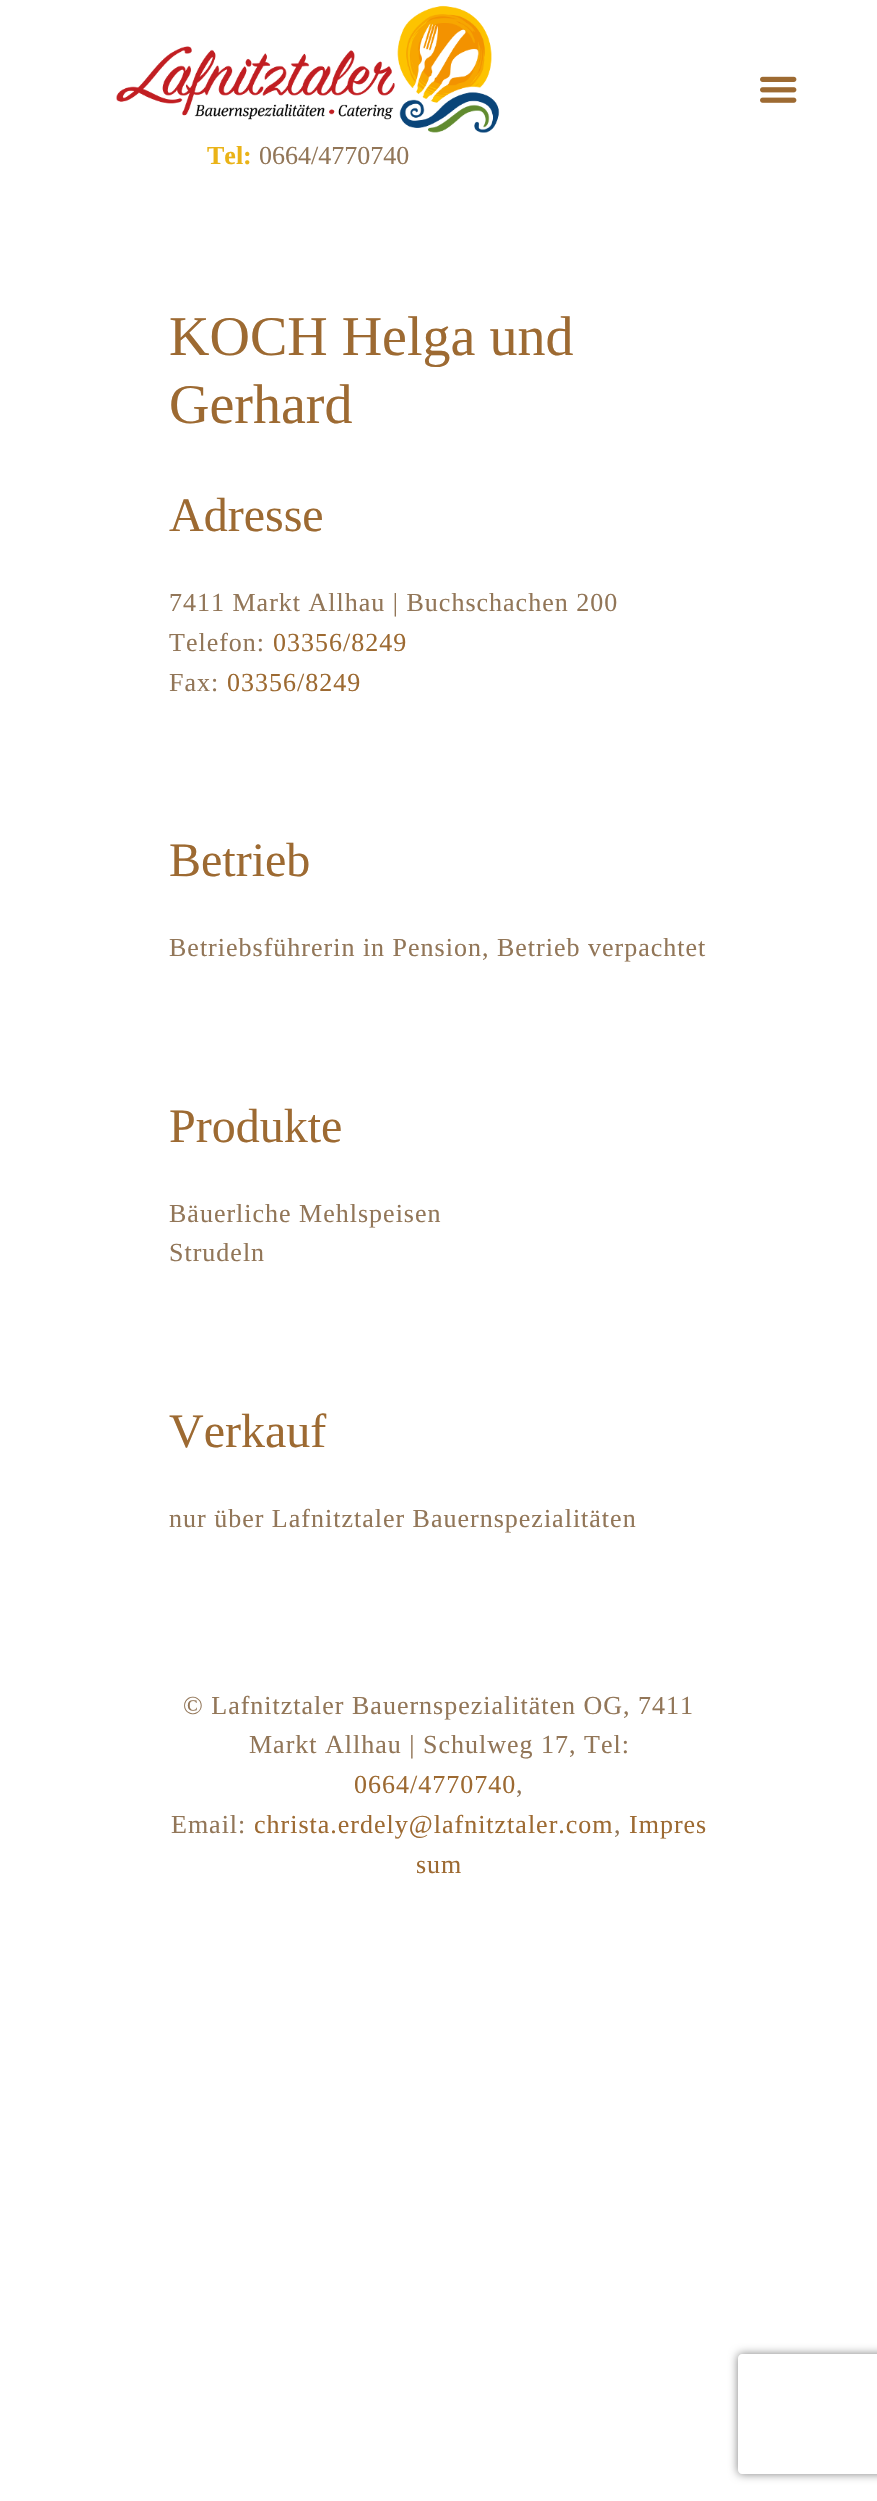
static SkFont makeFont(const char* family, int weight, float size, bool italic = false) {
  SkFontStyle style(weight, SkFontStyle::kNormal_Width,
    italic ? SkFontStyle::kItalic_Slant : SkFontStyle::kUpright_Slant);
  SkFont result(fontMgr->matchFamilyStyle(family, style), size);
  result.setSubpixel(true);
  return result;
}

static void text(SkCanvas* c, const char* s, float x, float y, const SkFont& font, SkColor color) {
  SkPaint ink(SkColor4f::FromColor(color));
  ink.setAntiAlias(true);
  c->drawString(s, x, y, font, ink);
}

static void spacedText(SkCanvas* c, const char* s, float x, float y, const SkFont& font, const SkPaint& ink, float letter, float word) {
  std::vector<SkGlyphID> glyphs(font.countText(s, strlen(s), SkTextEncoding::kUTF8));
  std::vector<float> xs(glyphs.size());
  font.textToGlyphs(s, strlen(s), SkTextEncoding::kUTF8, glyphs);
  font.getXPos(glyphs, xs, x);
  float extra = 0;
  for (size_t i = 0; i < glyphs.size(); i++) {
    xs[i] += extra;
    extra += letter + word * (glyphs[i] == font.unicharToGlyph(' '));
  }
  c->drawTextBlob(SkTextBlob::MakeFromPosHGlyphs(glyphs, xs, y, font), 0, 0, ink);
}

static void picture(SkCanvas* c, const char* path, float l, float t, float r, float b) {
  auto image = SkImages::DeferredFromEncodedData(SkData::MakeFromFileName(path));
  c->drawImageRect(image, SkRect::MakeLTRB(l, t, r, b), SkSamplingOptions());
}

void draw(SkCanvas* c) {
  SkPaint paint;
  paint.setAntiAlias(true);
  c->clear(0xffffffff);
  picture(c, "img_01.png", 760, 76, 797, 103);
  picture(c, "img_02.png", 116, 5, 500, 133);
  SkFont face1 = makeFont("Liberation Serif", 700, 26);
  text(c, "Tel:", 207, 164, face1, 0xffeab317);
  SkFont face2 = makeFont("Liberation Serif", 400, 26);
  text(c, "0664/4770740", 259, 164, face2, 0xff927658);
  SkFont face3 = makeFont("Liberation Serif", 400, 56);
  text(c, "KOCH Helga und", 169, 355, face3, 0xff9d6a32);
  text(c, "Gerhard", 169, 423, face3, 0xff9d6a32);
  SkFont face4 = makeFont("Liberation Serif", 400, 48);
  text(c, "Adresse", 169, 531, face4, 0xff9d6a32);
  paint.setColor(0xff927658);
  spacedText(c, "7411 Markt Allhau | Buchschachen 200", 169, 611, face2, paint, 1, 0);
  spacedText(c, "Telefon:", 169, 651, face2, paint, 1, 0);
  paint.setColor(0xff9d6a32);
  spacedText(c, "03356/8249", 273, 651, face2, paint, 1, 0);
  paint.setColor(0xff927658);
  spacedText(c, "Fax:", 169, 691, face2, paint, 1, 0);
  paint.setColor(0xff9d6a32);
  spacedText(c, "03356/8249", 227, 691, face2, paint, 1, 0);
  text(c, "Betrieb", 169, 876, face4, 0xff9d6a32);
  paint.setColor(0xff927658);
  spacedText(c, "Betriebsführerin in Pension, Betrieb verpachtet", 169, 956, face2, paint, 1, 0);
  text(c, "Produkte", 169, 1142, face4, 0xff9d6a32);
  spacedText(c, "Bäuerliche Mehlspeisen", 169, 1222, face2, paint, 1, 0);
  spacedText(c, "Strudeln", 169, 1261, face2, paint, 1, 0);
  text(c, "Verkauf", 169, 1447, face4, 0xff9d6a32);
  spacedText(c, "nur über Lafnitztaler Bauernspezialitäten", 169, 1527, face2, paint, 1, 0);
  spacedText(c, "© Lafnitztaler Bauernspezialitäten OG, 7411", 183, 1714, face2, paint, 1, 0);
  spacedText(c, "Markt Allhau | Schulweg 17, Tel:", 249, 1753, face2, paint, 1, 0);
  paint.setColor(0xff9d6a32);
  spacedText(c, "0664/4770740", 354, 1793, face2, paint, 1, 0);
  paint.setColor(0xff927658);
  spacedText(c, ",", 516, 1793, face2, paint, 1, 0);
  spacedText(c, "Email:", 171, 1833, face2, paint, 1, 0);
  paint.setColor(0xff9d6a32);
  spacedText(c, "christa.erdely@lafnitztaler.com", 254, 1833, face2, paint, 1, 0);
  paint.setColor(0xff927658);
  spacedText(c, ",", 614, 1833, face2, paint, 1, 0);
  paint.setColor(0xff9d6a32);
  spacedText(c, "Impres", 629, 1833, face2, paint, 1, 0);
  spacedText(c, "sum", 416, 1873, face2, paint, 1, 0);
  c->save();
  c->clipPath(SkPathBuilder(SkPathFillType::kEvenOdd).moveTo(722, 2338).lineTo(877, 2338).lineTo(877, 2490).lineTo(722, 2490).close().moveTo(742, 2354).lineTo(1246, 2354).cubicTo(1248, 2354, 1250, 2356, 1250, 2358).lineTo(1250, 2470).cubicTo(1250, 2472, 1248, 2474, 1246, 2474).lineTo(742, 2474).cubicTo(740, 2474, 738, 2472, 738, 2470).lineTo(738, 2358).cubicTo(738, 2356, 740, 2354, 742, 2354).close().detach(), true);
  paint.setColor(0xff808080);
  paint.setMaskFilter(SkMaskFilter::MakeBlur(kNormal_SkBlurStyle, 5));
  c->drawRoundRect(SkRect::MakeLTRB(738, 2354, 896, 2474), 4, 4, paint);
  paint.setMaskFilter(nullptr);
  c->restore();
}
